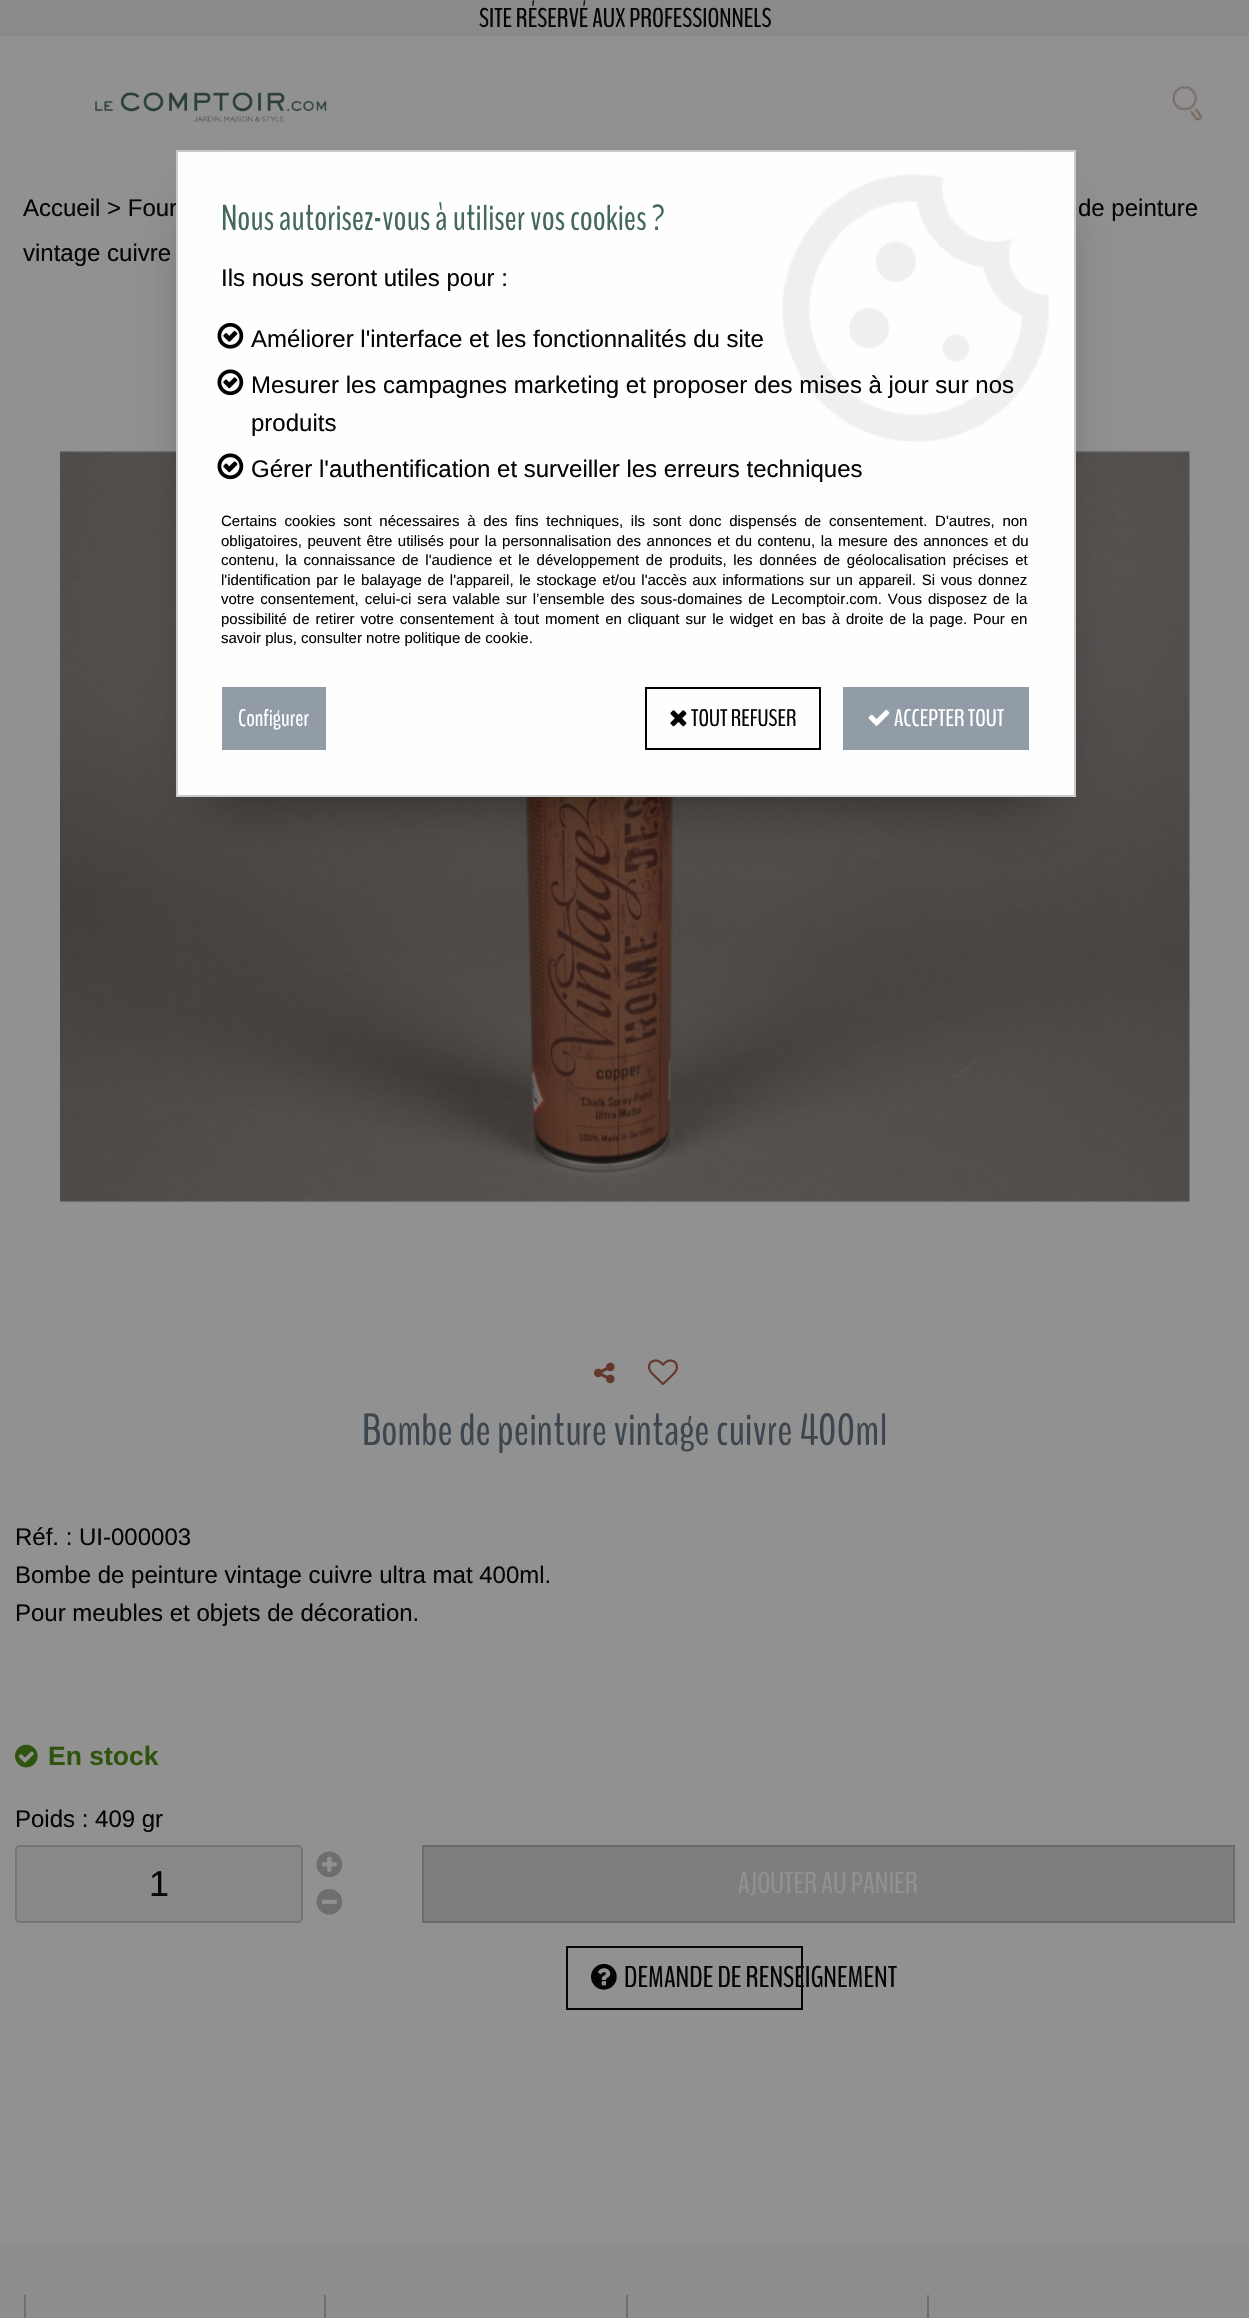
static SkFont makeFont(const char* family, int weight, float size, bool italic = false) {
  SkFontStyle style(weight, SkFontStyle::kNormal_Width,
    italic ? SkFontStyle::kItalic_Slant : SkFontStyle::kUpright_Slant);
  SkFont result(fontMgr->matchFamilyStyle(family, style), size);
  result.setSubpixel(true);
  return result;
}

static void text(SkCanvas* c, const char* s, float x, float y, const SkFont& font, SkColor color) {
  SkPaint ink(SkColor4f::FromColor(color));
  ink.setAntiAlias(true);
  c->drawString(s, x, y, font, ink);
}

static void spacedText(SkCanvas* c, const char* s, float x, float y, const SkFont& font, const SkPaint& ink, float letter, float word) {
  std::vector<SkGlyphID> glyphs(font.countText(s, strlen(s), SkTextEncoding::kUTF8));
  std::vector<float> xs(glyphs.size());
  font.textToGlyphs(s, strlen(s), SkTextEncoding::kUTF8, glyphs);
  font.getXPos(glyphs, xs, x);
  float extra = 0;
  for (size_t i = 0; i < glyphs.size(); i++) {
    xs[i] += extra;
    extra += letter + word * (glyphs[i] == font.unicharToGlyph(' '));
  }
  c->drawTextBlob(SkTextBlob::MakeFromPosHGlyphs(glyphs, xs, y, font), 0, 0, ink);
}

static void box(SkCanvas* c, float l, float t, float r, float b, SkColor color) {
  SkPaint ink(SkColor4f::FromColor(color));
  ink.setAntiAlias(true);
  c->drawRect(SkRect::MakeLTRB(l, t, r, b), ink);
}

static void picture(SkCanvas* c, const char* path, float l, float t, float r, float b) {
  auto image = SkImages::DeferredFromEncodedData(SkData::MakeFromFileName(path));
  c->drawImageRect(image, SkRect::MakeLTRB(l, t, r, b), SkSamplingOptions());
}

void draw(SkCanvas* c) {
  SkPaint paint;
  paint.setAntiAlias(true);
  c->clear(0xff919191);
  box(c, 0, 0, 1249, 36, 0xff8b8a8a);
  SkFont face1 = makeFont("BenchNine", 400, 27);
  text(c, "SITE RÉSERVÉ AUX PROFESSIONNELS", 479, 27, face1, 0xff050505);
  picture(c, "img_01.png", 95, 92, 327, 122);
  picture(c, "img_02.png", 1172, 85, 1202, 121);
  SkFont face2 = makeFont("Liberation Sans", 400, 24);
  text(c, "Accueil > Four", 23, 216, face2, 0xff050505);
  text(c, "de peinture", 1078, 216, face2, 0xff050505);
  text(c, "vintage cuivre", 23, 261, face2, 0xff050505);
  picture(c, "img_03.png", 60, 451, 1190, 1203);
  picture(c, "img_04.png", 594, 1362, 615, 1384);
  picture(c, "img_05.png", 648, 1359, 678, 1386);
  SkFont face3 = makeFont("BenchNine", 400, 45);
  text(c, "Bombe de peinture vintage cuivre 400ml", 362, 1445, face3, 0xff3d454e);
  text(c, "Réf. : UI-000003", 15, 1545, face2, 0xff050505);
  text(c, "Bombe de peinture vintage cuivre ultra mat 400ml.", 15, 1583, face2, 0xff050505);
  text(c, "Pour meubles et objets de décoration.", 15, 1621, face2, 0xff050505);
  picture(c, "img_06.png", 15, 1744, 38, 1768);
  SkFont face4 = makeFont("Liberation Sans", 700, 26.5f);
  text(c, "En stock", 48, 1765, face4, 0xff2f540e);
  text(c, "Poids : 409 gr", 15, 1827, face2, 0xff050505);
  paint.setColor(0xff898989);
  c->drawRoundRect(SkRect::MakeLTRB(16, 1846, 302, 1922), 4, 4, paint);
  paint.setStyle(SkPaint::kStroke_Style);
  paint.setStrokeWidth(2);
  paint.setColor(0xff757575);
  c->drawRoundRect(SkRect::MakeLTRB(16, 1846, 302, 1922), 4, 4, paint);
  SkFont face5 = makeFont("Liberation Sans", 400, 36);
  text(c, "1", 149, 1896, face5, 0xff050505);
  picture(c, "img_07.png", 316, 1851, 343, 1878);
  picture(c, "img_08.png", 316, 1889, 343, 1915);
  paint.setStyle(SkPaint::kFill_Style);
  paint.setColor(0xff7e7e7e);
  c->drawRect(SkRect::MakeLTRB(423, 1846, 1234, 1922), paint);
  paint.setStyle(SkPaint::kStroke_Style);
  paint.setColor(0xff6b6b6b);
  c->drawRect(SkRect::MakeLTRB(423, 1846, 1234, 1922), paint);
  SkFont face6 = makeFont("BenchNine", 400, 30);
  text(c, "AJOUTER AU PANIER", 738, 1893, face6, 0xff919191);
  paint.setColor(0xff050505);
  c->drawRect(SkRect::MakeLTRB(567, 1947, 802, 2009), paint);
  picture(c, "img_09.png", 591, 1963, 617, 1990);
  text(c, "DEMANDE DE RENSEIGNEMENT", 624, 1987, face6, 0xff050505);
  box(c, 0, 2243, 1249, 2318, 0xff8c8d8c);
  box(c, 24, 2295, 26, 2318, 0xff6f6f6f);
  box(c, 324, 2295, 326, 2318, 0xff6f6f6f);
  box(c, 626, 2295, 628, 2318, 0xff6f6f6f);
  box(c, 927, 2295, 929, 2318, 0xff6f6f6f);
  paint.setStyle(SkPaint::kFill_Style);
  paint.setColor(0x80000000);
  paint.setMaskFilter(SkMaskFilter::MakeBlur(kNormal_SkBlurStyle, 30));
  c->drawRect(SkRect::MakeLTRB(206, 210, 1046, 797), paint);
  paint.setMaskFilter(nullptr);
  box(c, 178, 152, 1074, 795, 0xfffefefe);
  picture(c, "img_10.png", 782, 174, 1049, 442);
  paint.setStyle(SkPaint::kStroke_Style);
  paint.setColor(0xffcacaca);
  c->drawRect(SkRect::MakeLTRB(177, 151, 1075, 796), paint);
  SkFont face7 = makeFont("BenchNine", 400, 36);
  text(c, "Nous autorisez-vous à utiliser vos cookies ?", 221, 230, face7, 0xff44695b);
  text(c, "Ils nous seront utiles pour :", 221, 286, face2, 0xff050505);
  picture(c, "img_11.png", 217, 322, 244, 349);
  text(c, "Améliorer l'interface et les fonctionnalités du site", 251, 347, face2, 0xff050505);
  picture(c, "img_12.png", 217, 369, 244, 396);
  text(c, "Mesurer les campagnes marketing et proposer des mises à jour sur nos", 251, 393, face2, 0xff050505);
  text(c, "produits", 251, 431, face2, 0xff050505);
  picture(c, "img_12.png", 217, 453, 244, 480);
  text(c, "Gérer l'authentification et surveiller les erreurs techniques", 251, 477, face2, 0xff050505);
  SkFont face8 = makeFont("Liberation Sans", 400, 15);
  paint.setStyle(SkPaint::kFill_Style);
  paint.setColor(0xff050505);
  spacedText(c, "Certains cookies sont nécessaires à des fins techniques, ils sont donc dispensés de consentement. D'autres, non", 221, 526, face8, paint, 0, 3.6f);
  spacedText(c, "obligatoires, peuvent être utilisés pour la personnalisation des annonces et du contenu, la mesure des annonces et du", 221, 546, face8, paint, 0, 1.4f);
  spacedText(c, "contenu, la connaissance de l'audience et le développement de produits, les données de géolocalisation précises et", 221, 565, face8, paint, 0, 2.5f);
  spacedText(c, "l'identification par le balayage de l'appareil, le stockage et/ou l'accès aux informations sur un appareil. Si vous donnez", 221, 585, face8, paint, 0, 1.5f);
  spacedText(c, "votre consentement, celui-ci sera valable sur l’ensemble des sous-domaines de Lecomptoir.com. Vous disposez de la", 221, 604, face8, paint, 0, 1.8f);
  spacedText(c, "possibilité de retirer votre consentement à tout moment en cliquant sur le widget en bas à droite de la page. Pour en", 221, 624, face8, paint, 0, 1.75f);
  text(c, "savoir plus, consulter notre politique de cookie.", 221, 643, face8, 0xff050505);
  box(c, 222, 687, 326, 750, 0xff929ca7);
  SkFont face9 = makeFont("BenchNine", 400, 24);
  text(c, "Configurer", 238, 726, face9, 0xffffffff);
  paint.setStyle(SkPaint::kStroke_Style);
  paint.setColor(0xff000000);
  c->drawRect(SkRect::MakeLTRB(646, 688, 820, 749), paint);
  picture(c, "img_13.png", 670, 710, 687, 727);
  text(c, "TOUT REFUSER", 691, 726, face9, 0xff050505);
  box(c, 843, 687, 1029, 750, 0xff929ca7);
  picture(c, "img_14.png", 868, 709, 890, 726);
  text(c, "ACCEPTER TOUT", 894, 726, face9, 0xffffffff);
}
